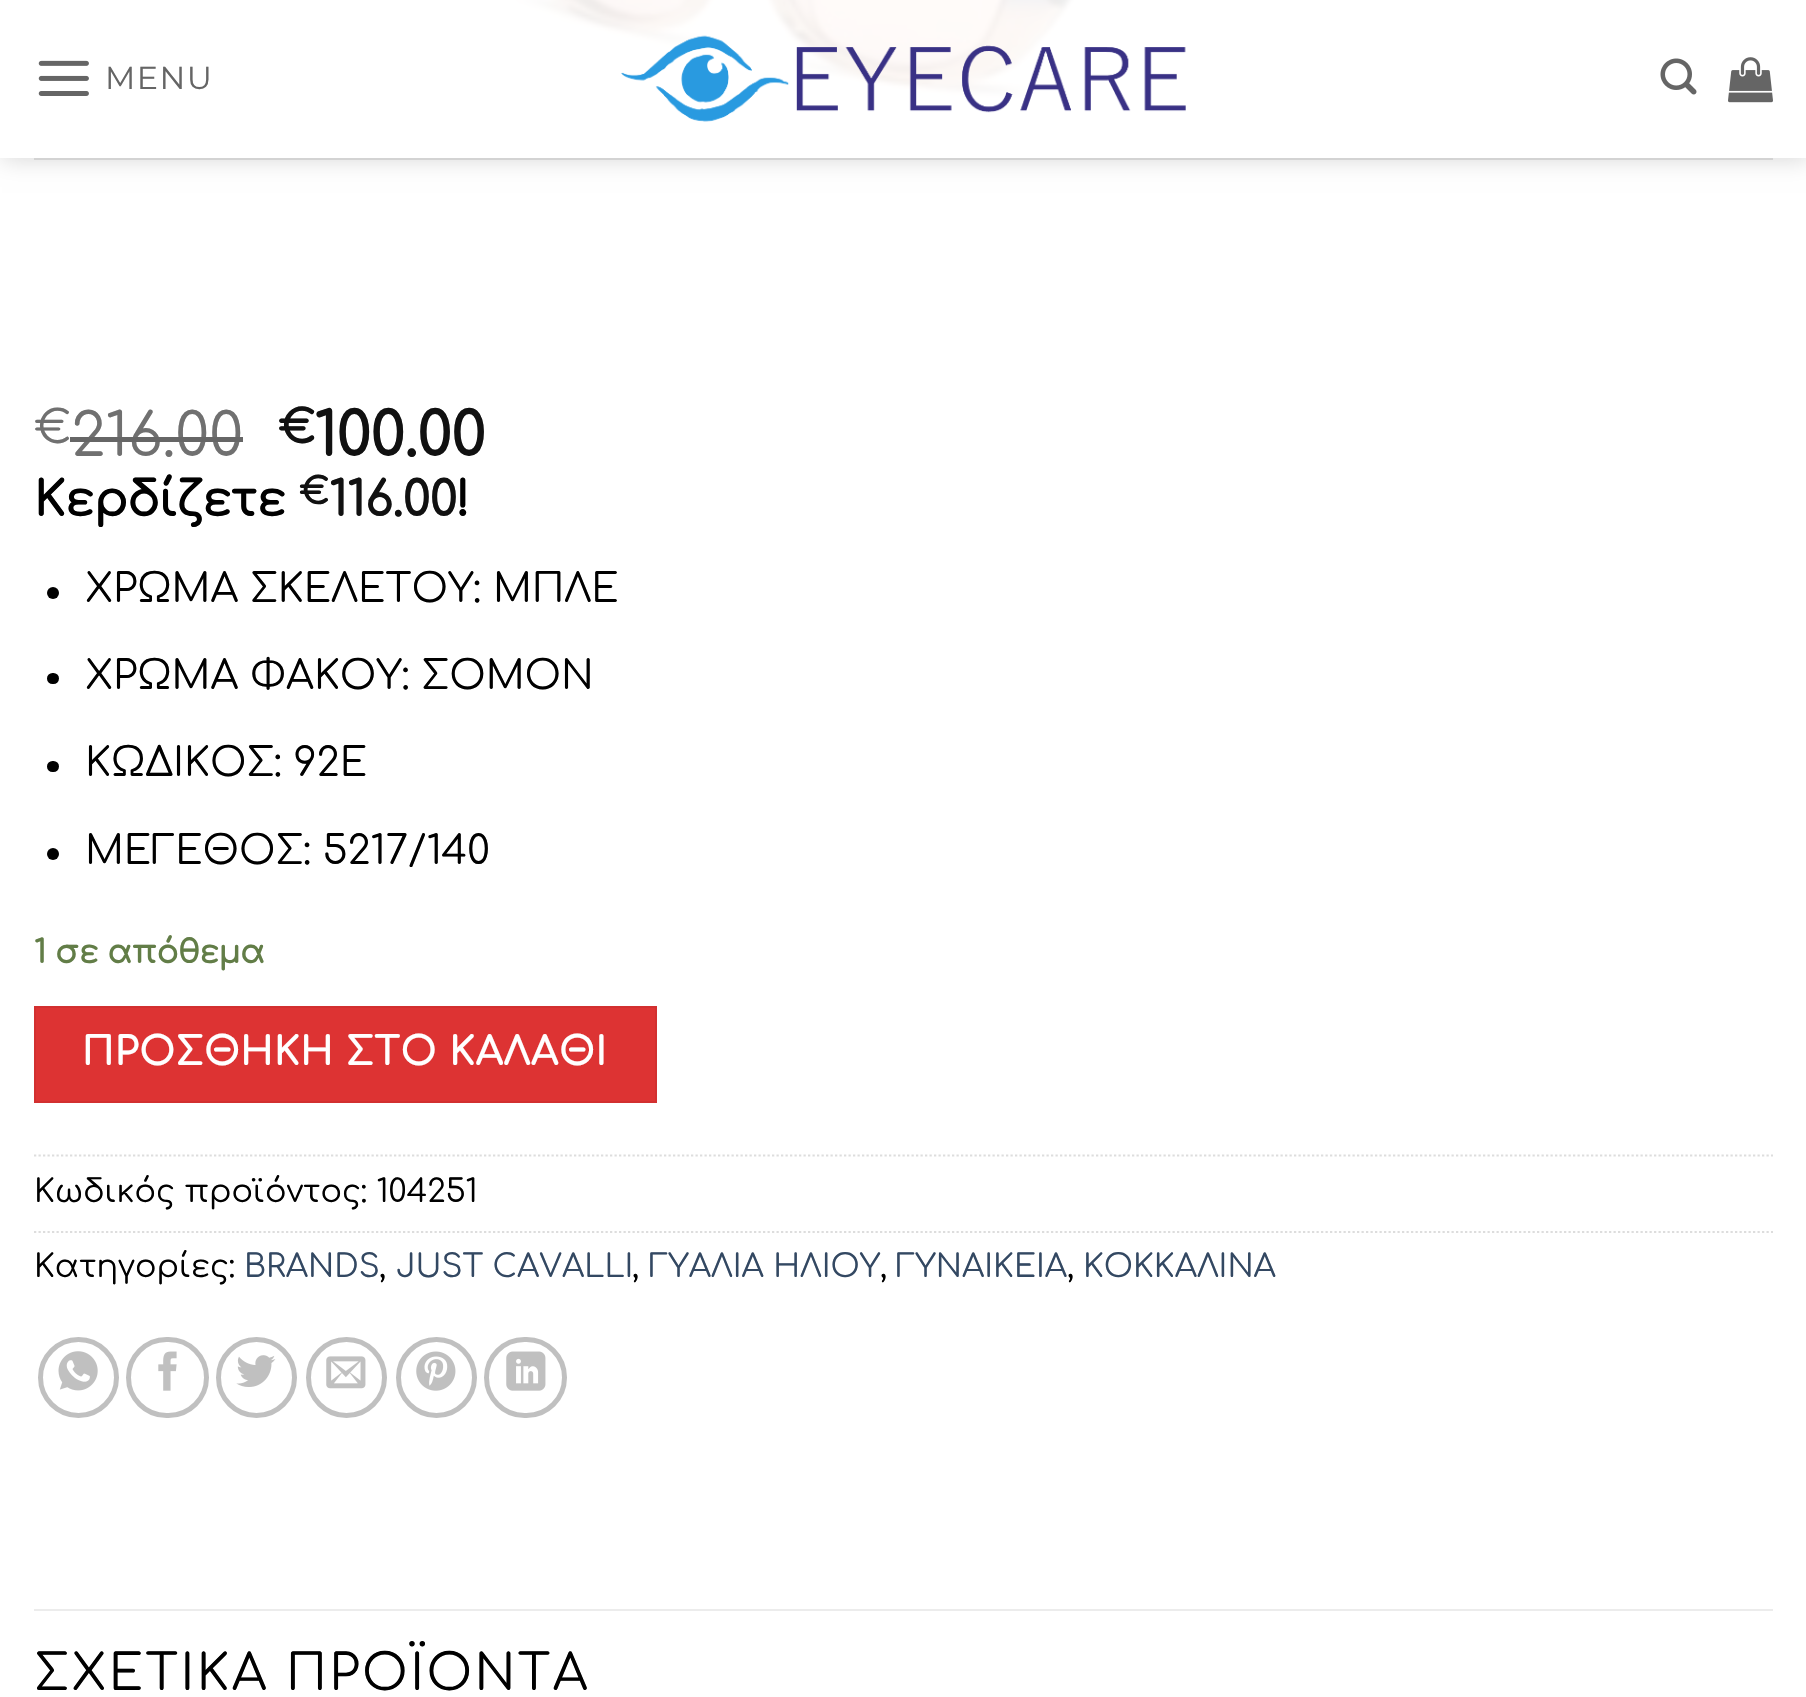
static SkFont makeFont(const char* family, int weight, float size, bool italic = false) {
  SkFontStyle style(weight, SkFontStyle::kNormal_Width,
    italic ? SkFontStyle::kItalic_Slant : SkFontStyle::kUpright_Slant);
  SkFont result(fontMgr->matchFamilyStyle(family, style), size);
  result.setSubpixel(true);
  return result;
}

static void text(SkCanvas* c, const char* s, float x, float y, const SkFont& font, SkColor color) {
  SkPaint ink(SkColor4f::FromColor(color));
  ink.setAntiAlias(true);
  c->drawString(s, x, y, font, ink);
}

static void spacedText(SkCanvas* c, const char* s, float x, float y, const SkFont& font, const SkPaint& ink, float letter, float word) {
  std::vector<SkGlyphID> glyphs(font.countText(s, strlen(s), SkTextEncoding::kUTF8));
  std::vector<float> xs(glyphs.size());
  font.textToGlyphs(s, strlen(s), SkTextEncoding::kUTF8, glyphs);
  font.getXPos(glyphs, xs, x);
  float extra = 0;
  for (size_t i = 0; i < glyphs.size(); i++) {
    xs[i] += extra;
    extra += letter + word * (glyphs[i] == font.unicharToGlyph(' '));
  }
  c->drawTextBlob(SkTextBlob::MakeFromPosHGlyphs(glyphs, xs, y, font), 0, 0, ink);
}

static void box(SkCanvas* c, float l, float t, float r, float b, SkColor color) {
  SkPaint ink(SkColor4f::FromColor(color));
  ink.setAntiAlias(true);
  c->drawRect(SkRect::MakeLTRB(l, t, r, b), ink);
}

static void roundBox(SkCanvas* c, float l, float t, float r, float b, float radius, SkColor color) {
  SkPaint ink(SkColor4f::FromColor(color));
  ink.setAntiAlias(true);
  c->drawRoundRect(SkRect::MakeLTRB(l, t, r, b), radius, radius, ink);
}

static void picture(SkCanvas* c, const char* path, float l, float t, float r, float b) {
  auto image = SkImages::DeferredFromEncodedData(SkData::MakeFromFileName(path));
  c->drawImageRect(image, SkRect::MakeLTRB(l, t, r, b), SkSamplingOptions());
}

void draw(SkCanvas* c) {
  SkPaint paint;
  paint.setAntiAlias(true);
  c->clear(0xffffffff);
  picture(c, "img_05.png", 511, 0, 1078, 101);
  c->save();
  c->clipPath(SkPathBuilder(SkPathFillType::kEvenOdd).moveTo(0, 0).lineTo(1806, 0).lineTo(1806, 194).lineTo(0, 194).close().moveTo(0, 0).lineTo(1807, 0).lineTo(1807, 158).lineTo(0, 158).close().detach(), true);
  paint.setColor(0x26000000);
  paint.setMaskFilter(SkMaskFilter::MakeBlur(kNormal_SkBlurStyle, 11));
  c->drawRect(SkRect::MakeLTRB(2, 2, 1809, 160), paint);
  paint.setMaskFilter(nullptr);
  c->restore();
  box(c, 0, 0, 1806, 158, 0xe6ffffff);
  picture(c, "img_01.png", 38, 60, 89, 96);
  SkFont face1 = makeFont("Montserrat", 100, 31.75f);
  paint.setColor(0xff656565);
  spacedText(c, "MENU", 105, 89, face1, paint, 1.5f, 0);
  picture(c, "img_02.png", 621, 35, 1186, 122);
  picture(c, "img_03.png", 1660, 58, 1697, 95);
  picture(c, "img_04.png", 1728, 57, 1773, 103);
  box(c, 34, 158, 1773, 160, 0xffd3d3d3);
  SkFont face2 = makeFont("Comfortaa", 400, 45);
  text(c, "€", 34, 443, face2, 0xff707070);
  SkFont face3 = makeFont("Comfortaa", 400, 59.5f);
  text(c, "216.00", 71, 456, face3, 0xff707070);
  box(c, 70, 437, 243, 442, 0xff666666);
  SkFont face4 = makeFont("Comfortaa", 700, 45);
  text(c, "€", 278, 443, face4, 0xff111111);
  SkFont face5 = makeFont("Comfortaa", 700, 59.5f);
  text(c, "100.00", 314, 456, face5, 0xff111111);
  SkFont face6 = makeFont("Comfortaa", 700, 47.5f);
  text(c, "Κερδίζετε", 34, 516, face6, 0xff000000);
  SkFont face7 = makeFont("Comfortaa", 700, 36);
  text(c, "€", 299, 504, face7, 0xff111111);
  text(c, "116.00", 329, 516, face6, 0xff111111);
  text(c, "!", 457, 516, face6, 0xff000000);
  paint.setColor(0xff000000);
  c->drawCircle(53, 593, 6, paint);
  SkFont face8 = makeFont("Comfortaa", 400, 39.6f);
  text(c, "ΧΡΩΜΑ ΣΚΕΛΕΤΟΥ: ΜΠΛΕ", 85, 602, face8, 0xff000000);
  roundBox(c, 47, 673, 59, 684, 5.5f, 0xff000000);
  text(c, "ΧΡΩΜΑ ΦΑΚΟΥ: ΣΟΜΟΝ", 85, 689, face8, 0xff000000);
  roundBox(c, 47, 761, 59, 772, 5.5f, 0xff000000);
  text(c, "ΚΩΔΙΚΟΣ: 92E", 85, 776, face8, 0xff000000);
  c->drawCircle(53, 854, 6, paint);
  text(c, "ΜΕΓΕΘΟΣ: 5217/140", 85, 864, face8, 0xff000000);
  SkFont face9 = makeFont("Comfortaa", 700, 31.75f);
  text(c, "1 σε απόθεμα", 34, 963, face9, 0xff627d47);
  paint.setColor(0xffdd3333);
  c->drawRect(SkRect::MakeLTRB(35, 1007, 656, 1102), paint);
  paint.setStyle(SkPaint::kStroke_Style);
  paint.setStrokeWidth(2);
  paint.setColor(0xffd23030);
  c->drawRect(SkRect::MakeLTRB(35, 1007, 656, 1102), paint);
  SkFont face10 = makeFont("Comfortaa", 700, 38.4f);
  paint.setStyle(SkPaint::kFill_Style);
  paint.setColor(0xffffffff);
  spacedText(c, "ΠΡΟΣΘΗΚΗ ΣΤΟ ΚΑΛΑΘΙ", 82, 1065, face10, paint, 1.1f, 0);
  paint.setStyle(SkPaint::kStroke_Style);
  paint.setStrokeWidth(2.2f);
  paint.setColor(0xffdddddd);
  paint.setPathEffect(SkDashPathEffect::Make({{2.25f, 2.25f}}, 0));
  c->drawPath(SkPathBuilder().moveTo(34, 1155.5f).lineTo(1773, 1155.5f).detach(), paint);
  paint.setPathEffect(nullptr);
  SkFont face11 = makeFont("Comfortaa", 400, 31.75f);
  text(c, "Κωδικός προϊόντος: 104251", 34, 1202, face11, 0xff000000);
  paint.setPathEffect(SkDashPathEffect::Make({{2.25f, 2.25f}}, 0));
  c->drawPath(SkPathBuilder().moveTo(34, 1232).lineTo(1773, 1232).detach(), paint);
  paint.setPathEffect(nullptr);
  text(c, "Κατηγορίες:", 34, 1277, face11, 0xff000000);
  text(c, "BRANDS", 244, 1277, face11, 0xff334862);
  text(c, "JUST CAVALLI", 396, 1277, face11, 0xff334862);
  text(c, "ΓΥΑΛΙΑ ΗΛΙΟΥ", 649, 1277, face11, 0xff334862);
  text(c, "ΓΥΝΑΙΚΕΙΑ", 896, 1277, face11, 0xff334862);
  text(c, "ΚΟΚΚΑΛΙΝΑ", 1083, 1277, face11, 0xff334862);
  text(c, ",", 379, 1277, face11, 0xff000000);
  text(c, ",", 632, 1277, face11, 0xff000000);
  text(c, ",", 880, 1277, face11, 0xff000000);
  text(c, ",", 1067, 1277, face11, 0xff000000);
  paint.setStrokeWidth(5);
  paint.setColor(0xffc0c0c0);
  c->drawCircle(78.5f, 1377.5f, 38, paint);
  picture(c, "img_06.png", 58, 1351, 98, 1391);
  c->drawRoundRect(SkRect::MakeLTRB(128.5f, 1339.5f, 206.5f, 1415.5f), 38, 38, paint);
  picture(c, "img_07.png", 158, 1351, 177, 1391);
  c->drawCircle(256.5f, 1377.5f, 38, paint);
  picture(c, "img_08.png", 236, 1355, 276, 1387);
  c->drawCircle(346.5f, 1377.5f, 38, paint);
  picture(c, "img_09.png", 326, 1356, 366, 1389);
  c->drawCircle(436.5f, 1377.5f, 38, paint);
  picture(c, "img_10.png", 416, 1351, 456, 1391);
  c->drawRoundRect(SkRect::MakeLTRB(486.5f, 1339.5f, 564.5f, 1415.5f), 38, 38, paint);
  picture(c, "img_11.png", 506, 1351, 546, 1391);
  box(c, 34, 1609, 1773, 1611, 0xffececec);
  SkFont face12 = makeFont("Comfortaa", 400, 49.5f);
  paint.setStyle(SkPaint::kFill_Style);
  paint.setColor(0xff000000);
  spacedText(c, "ΣΧΕΤΙΚΑ ΠΡΟΪΟΝΤΑ", 34, 1690, face12, paint, 2.5f, 0);
}
